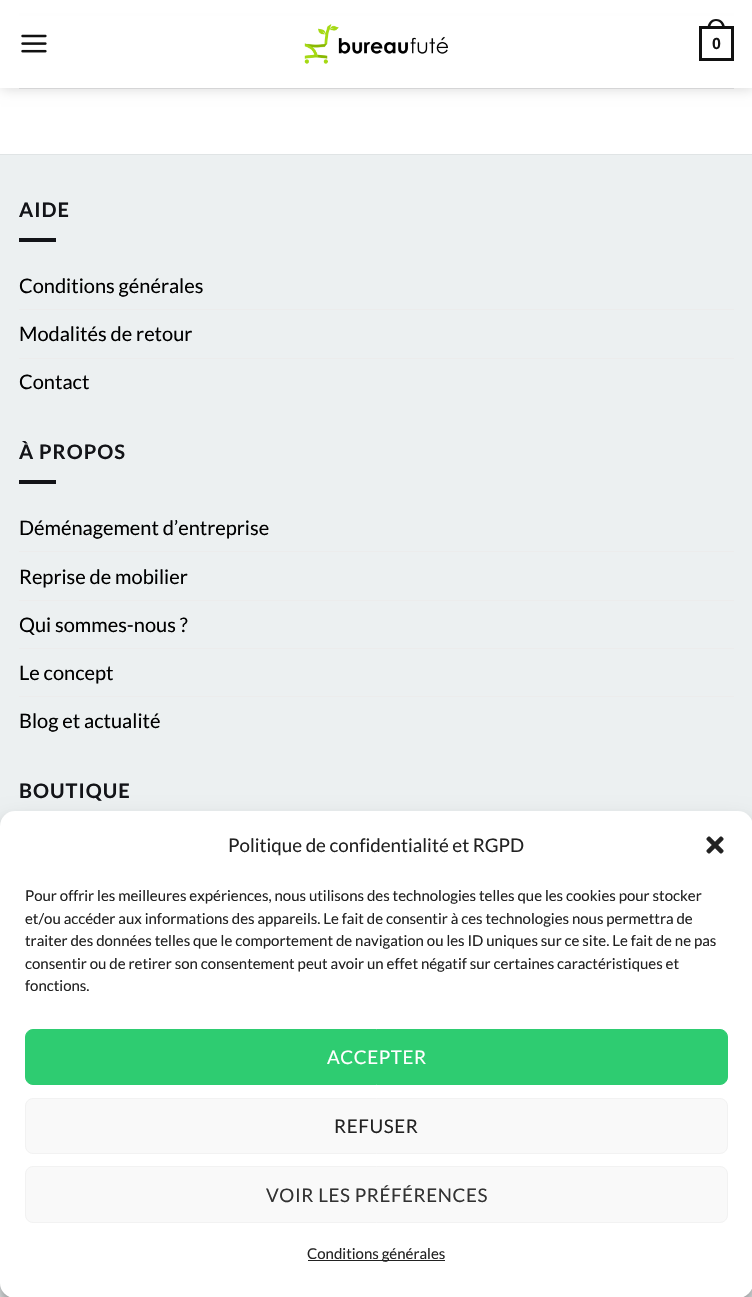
static SkFont makeFont(const char* family, int weight, float size, bool italic = false) {
  SkFontStyle style(weight, SkFontStyle::kNormal_Width,
    italic ? SkFontStyle::kItalic_Slant : SkFontStyle::kUpright_Slant);
  SkFont result(fontMgr->matchFamilyStyle(family, style), size);
  result.setSubpixel(true);
  return result;
}

static void text(SkCanvas* c, const char* s, float x, float y, const SkFont& font, SkColor color) {
  SkPaint ink(SkColor4f::FromColor(color));
  ink.setAntiAlias(true);
  c->drawString(s, x, y, font, ink);
}

static void spacedText(SkCanvas* c, const char* s, float x, float y, const SkFont& font, const SkPaint& ink, float letter, float word) {
  std::vector<SkGlyphID> glyphs(font.countText(s, strlen(s), SkTextEncoding::kUTF8));
  std::vector<float> xs(glyphs.size());
  font.textToGlyphs(s, strlen(s), SkTextEncoding::kUTF8, glyphs);
  font.getXPos(glyphs, xs, x);
  float extra = 0;
  for (size_t i = 0; i < glyphs.size(); i++) {
    xs[i] += extra;
    extra += letter + word * (glyphs[i] == font.unicharToGlyph(' '));
  }
  c->drawTextBlob(SkTextBlob::MakeFromPosHGlyphs(glyphs, xs, y, font), 0, 0, ink);
}

static void box(SkCanvas* c, float l, float t, float r, float b, SkColor color) {
  SkPaint ink(SkColor4f::FromColor(color));
  ink.setAntiAlias(true);
  c->drawRect(SkRect::MakeLTRB(l, t, r, b), ink);
}

static void roundBox(SkCanvas* c, float l, float t, float r, float b, float radius, SkColor color) {
  SkPaint ink(SkColor4f::FromColor(color));
  ink.setAntiAlias(true);
  c->drawRoundRect(SkRect::MakeLTRB(l, t, r, b), radius, radius, ink);
}

static void picture(SkCanvas* c, const char* path, float l, float t, float r, float b) {
  auto image = SkImages::DeferredFromEncodedData(SkData::MakeFromFileName(path));
  c->drawImageRect(image, SkRect::MakeLTRB(l, t, r, b), SkSamplingOptions());
}

void draw(SkCanvas* c) {
  SkPaint paint;
  paint.setAntiAlias(true);
  c->clear(0xffffffff);
  box(c, 19, 13, 734, 16, 0xffececec);
  c->save();
  c->clipPath(SkPathBuilder(SkPathFillType::kEvenOdd).moveTo(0, 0).lineTo(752, 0).lineTo(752, 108).lineTo(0, 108).close().moveTo(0, 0).lineTo(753, 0).lineTo(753, 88).lineTo(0, 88).close().detach(), true);
  paint.setColor(0x26000000);
  paint.setMaskFilter(SkMaskFilter::MakeBlur(kNormal_SkBlurStyle, 6));
  c->drawRect(SkRect::MakeLTRB(1, 1, 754, 89), paint);
  paint.setMaskFilter(nullptr);
  c->restore();
  box(c, 0, 13, 752, 88, 0xe6ffffff);
  picture(c, "img_01.png", 21, 34, 47, 53);
  picture(c, "img_02.png", 304, 24, 448, 64);
  paint.setStyle(SkPaint::kStroke_Style);
  paint.setStrokeWidth(3);
  paint.setColor(0xff111111);
  c->drawRect(SkRect::MakeLTRB(700.5f, 27.5f, 732.5f, 59.5f), paint);
  paint.setStyle(SkPaint::kFill_Style);
  c->drawPath(SkPathBuilder(SkPathFillType::kEvenOdd).moveTo(716, 19).cubicTo(722, 19, 725, 23.5f, 725, 29).lineTo(707.5f, 29).cubicTo(707.5f, 23.5f, 710.5f, 19, 716, 19).close().moveTo(716, 21).cubicTo(720.5f, 21, 722.5f, 25, 722.5f, 29).lineTo(710, 29).cubicTo(710, 25, 712, 21, 716, 21).close().detach(), paint);
  SkFont face1 = makeFont("Liberation Sans", 700, 16);
  text(c, "0", 712, 49, face1, 0xff111111);
  box(c, 19, 88, 734, 89, 0xffd5d5d6);
  box(c, 0, 155, 752, 1297, 0xffecf0f1);
  box(c, 0, 154, 752, 155, 0xffe0e4e5);
  SkFont face2 = makeFont("Lato", 700, 20);
  paint.setColor(0xff131418);
  spacedText(c, "AIDE", 19, 217, face2, paint, 1, 0);
  box(c, 19, 238, 56, 242, 0xff131418);
  SkFont face3 = makeFont("Lato", 400, 20);
  text(c, "Conditions générales", 19, 293, face3, 0xff000000);
  box(c, 19, 309, 734, 310, 0xffececec);
  text(c, "Modalités de retour", 19, 341, face3, 0xff000000);
  box(c, 19, 358, 734, 359, 0xffececec);
  text(c, "Contact", 19, 389, face3, 0xff000000);
  spacedText(c, "À PROPOS", 19, 459, face2, paint, 1, 0);
  box(c, 19, 480, 56, 484, 0xff131418);
  text(c, "Déménagement d’entreprise", 19, 535, face3, 0xff000000);
  box(c, 19, 551, 734, 552, 0xffececec);
  text(c, "Reprise de mobilier", 19, 584, face3, 0xff000000);
  box(c, 19, 600, 734, 601, 0xffececec);
  text(c, "Qui sommes-nous ?", 19, 632, face3, 0xff000000);
  box(c, 19, 648, 734, 649, 0xffececec);
  text(c, "Le concept", 19, 680, face3, 0xff000000);
  box(c, 19, 696, 734, 697, 0xffececec);
  text(c, "Blog et actualité", 19, 728, face3, 0xff000000);
  spacedText(c, "BOUTIQUE", 19, 798, face2, paint, 1, 0);
  paint.setColor(0x3b000000);
  paint.setMaskFilter(SkMaskFilter::MakeBlur(kNormal_SkBlurStyle, 4));
  c->drawRoundRect(SkRect::MakeLTRB(0, 819, 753, 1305), 15, 15, paint);
  paint.setMaskFilter(nullptr);
  paint.setColor(0x30000000);
  paint.setMaskFilter(SkMaskFilter::MakeBlur(kNormal_SkBlurStyle, 12.5f));
  c->drawRoundRect(SkRect::MakeLTRB(0, 824, 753, 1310), 15, 15, paint);
  paint.setMaskFilter(nullptr);
  roundBox(c, 0, 811, 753, 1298, 15, 0xffffffff);
  SkFont face4 = makeFont("Lato", 400, 18.75f);
  text(c, "Politique de confidentialité et RGPD", 228, 852, face4, 0xff222222);
  picture(c, "img_03.png", 706, 836, 724, 854);
  SkFont face5 = makeFont("Lato", 400, 15);
  text(c, "Pour offrir les meilleures expériences, nous utilisons des technologies telles que les cookies pour stocker", 25, 901, face5, 0xff222222);
  text(c, "et/ou accéder aux informations des appareils. Le fait de consentir à ces technologies nous permettra de", 25, 924, face5, 0xff222222);
  text(c, "traiter des données telles que le comportement de navigation ou les ID uniques sur ce site. Le fait de ne pas", 25, 946, face5, 0xff222222);
  text(c, "consentir ou de retirer son consentement peut avoir un effet négatif sur certaines caractéristiques et", 25, 969, face5, 0xff222222);
  text(c, "fonctions.", 25, 991, face5, 0xff222222);
  paint.setColor(0xff2ecc71);
  c->drawRoundRect(SkRect::MakeLTRB(25.5f, 1029.5f, 727.5f, 1084.5f), 7.5f, 7.5f, paint);
  paint.setStyle(SkPaint::kStroke_Style);
  paint.setStrokeWidth(1);
  c->drawRoundRect(SkRect::MakeLTRB(25.5f, 1029.5f, 727.5f, 1084.5f), 7.5f, 7.5f, paint);
  paint.setStyle(SkPaint::kFill_Style);
  paint.setColor(0xffffffff);
  spacedText(c, "ACCEPTER", 327, 1064, face4, paint, 0.6f, 0);
  paint.setColor(0xfff9f9f9);
  c->drawRoundRect(SkRect::MakeLTRB(25.5f, 1098.5f, 727.5f, 1153.5f), 7.5f, 7.5f, paint);
  paint.setStyle(SkPaint::kStroke_Style);
  paint.setColor(0xfff2f2f2);
  c->drawRoundRect(SkRect::MakeLTRB(25.5f, 1098.5f, 727.5f, 1153.5f), 7.5f, 7.5f, paint);
  paint.setStyle(SkPaint::kFill_Style);
  paint.setColor(0xff222222);
  spacedText(c, "REFUSER", 334, 1133, face4, paint, 0.6f, 0);
  paint.setColor(0xfff9f9f9);
  c->drawRoundRect(SkRect::MakeLTRB(25.5f, 1166.5f, 727.5f, 1222.5f), 7.5f, 7.5f, paint);
  paint.setStyle(SkPaint::kStroke_Style);
  paint.setColor(0xfff2f2f2);
  c->drawRoundRect(SkRect::MakeLTRB(25.5f, 1166.5f, 727.5f, 1222.5f), 7.5f, 7.5f, paint);
  paint.setStyle(SkPaint::kFill_Style);
  paint.setColor(0xff333333);
  spacedText(c, "VOIR LES PRÉFÉRENCES", 266, 1202, face4, paint, 0.6f, 0);
  box(c, 308, 1260, 445, 1261, 0xff222222);
  text(c, "Conditions générales", 307, 1259, face5, 0xff222222);
}
